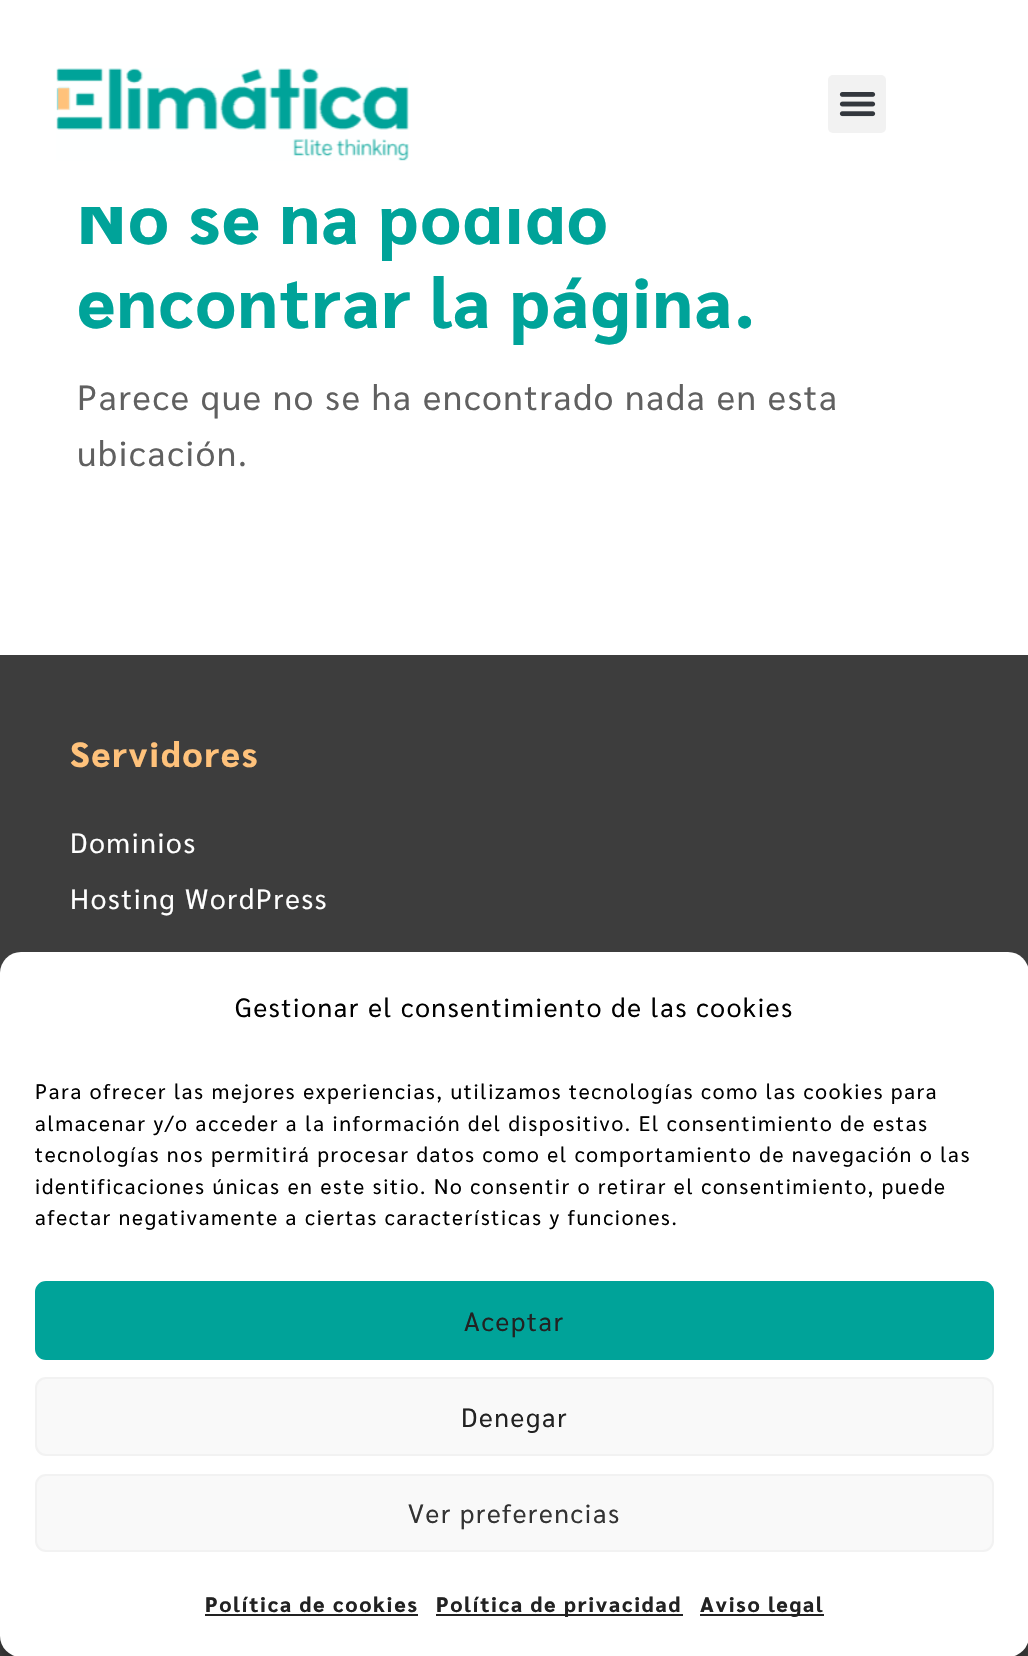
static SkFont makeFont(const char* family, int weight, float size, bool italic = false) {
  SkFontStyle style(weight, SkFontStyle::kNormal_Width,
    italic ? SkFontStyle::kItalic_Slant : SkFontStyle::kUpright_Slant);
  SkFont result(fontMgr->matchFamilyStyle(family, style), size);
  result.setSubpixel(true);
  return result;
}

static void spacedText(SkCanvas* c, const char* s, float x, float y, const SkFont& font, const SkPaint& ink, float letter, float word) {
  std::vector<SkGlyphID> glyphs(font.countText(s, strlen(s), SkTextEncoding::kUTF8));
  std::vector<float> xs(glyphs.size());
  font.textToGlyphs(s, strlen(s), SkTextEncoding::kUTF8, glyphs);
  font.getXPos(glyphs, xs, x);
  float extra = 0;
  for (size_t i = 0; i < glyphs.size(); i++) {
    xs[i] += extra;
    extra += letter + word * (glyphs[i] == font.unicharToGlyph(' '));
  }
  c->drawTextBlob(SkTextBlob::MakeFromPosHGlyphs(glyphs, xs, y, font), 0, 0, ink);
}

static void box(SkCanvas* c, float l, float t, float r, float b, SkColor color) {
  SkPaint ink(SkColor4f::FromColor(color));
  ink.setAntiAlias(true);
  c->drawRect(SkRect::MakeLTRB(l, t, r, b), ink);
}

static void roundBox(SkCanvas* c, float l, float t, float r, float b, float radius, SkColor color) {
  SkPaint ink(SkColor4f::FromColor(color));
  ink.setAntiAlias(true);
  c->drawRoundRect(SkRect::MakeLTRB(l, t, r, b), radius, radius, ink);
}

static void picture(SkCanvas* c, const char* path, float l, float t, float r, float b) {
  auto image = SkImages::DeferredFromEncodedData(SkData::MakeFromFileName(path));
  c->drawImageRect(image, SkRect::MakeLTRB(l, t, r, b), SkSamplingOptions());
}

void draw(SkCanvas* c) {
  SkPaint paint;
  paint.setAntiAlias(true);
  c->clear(0xffffffff);
  SkFont face1 = makeFont("Sarabun", 800, 70);
  paint.setColor(0xff00a399);
  spacedText(c, "No se ha podido", 77, 244, face1, paint, 1.75f, 0);
  box(c, 81, 192, 562, 207, 0xffffffff);
  picture(c, "img_01.png", 56, 68, 409, 161);
  roundBox(c, 828, 75, 886, 133, 5, 0xfff2f2f2);
  picture(c, "img_02.png", 839, 92, 876, 117);
  spacedText(c, "encontrar la página.", 77, 328, face1, paint, 1.75f, 0);
  SkFont face2 = makeFont("Sarabun", 400, 35);
  paint.setColor(0xff606060);
  spacedText(c, "Parece que no se ha encontrado nada en esta", 77, 410, face2, paint, 1.75f, 0);
  spacedText(c, "ubicación.", 77, 466, face2, paint, 1.75f, 0);
  box(c, 0, 655, 1028, 1656, 0xff3d3d3d);
  SkFont face3 = makeFont("Sarabun", 800, 35);
  paint.setColor(0xffffc27b);
  spacedText(c, "Servidores", 70, 767, face3, paint, 1.75f, 0);
  SkFont face4 = makeFont("Sarabun", 400, 28);
  paint.setColor(0xffffffff);
  spacedText(c, "Dominios", 70, 853, face4, paint, 1.75f, 0);
  spacedText(c, "Hosting WordPress", 70, 909, face4, paint, 1.75f, 0);
  paint.setColor(0x3b000000);
  paint.setMaskFilter(SkMaskFilter::MakeBlur(kNormal_SkBlurStyle, 5));
  c->drawRoundRect(SkRect::MakeLTRB(0, 963, 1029, 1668), 21, 21, paint);
  paint.setMaskFilter(nullptr);
  roundBox(c, 0, 952, 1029, 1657, 21, 0xffffffff);
  SkFont face5 = makeFont("Sarabun", 400, 26.25f);
  paint.setColor(0xff000000);
  spacedText(c, "Gestionar el consentimiento de las cookies", 235, 1017, face5, paint, 1.75f, 0);
  SkFont face6 = makeFont("Sarabun", 400, 21);
  spacedText(c, "Para ofrecer las mejores experiencias, utilizamos tecnologías como las cookies para", 35, 1099, face6, paint, 1.75f, 0);
  spacedText(c, "almacenar y/o acceder a la información del dispositivo. El consentimiento de estas", 35, 1131, face6, paint, 1.75f, 0);
  spacedText(c, "tecnologías nos permitirá procesar datos como el comportamiento de navegación o las", 35, 1162, face6, paint, 1.75f, 0);
  spacedText(c, "identificaciones únicas en este sitio. No consentir o retirar el consentimiento, puede", 35, 1194, face6, paint, 1.75f, 0);
  spacedText(c, "afectar negativamente a ciertas características y funciones.", 35, 1225, face6, paint, 1.75f, 0);
  paint.setColor(0xff00a399);
  c->drawRoundRect(SkRect::MakeLTRB(36, 1282, 993, 1359), 10, 10, paint);
  paint.setStyle(SkPaint::kStroke_Style);
  paint.setStrokeWidth(2);
  c->drawRoundRect(SkRect::MakeLTRB(36, 1282, 993, 1359), 10, 10, paint);
  paint.setStyle(SkPaint::kFill_Style);
  paint.setColor(0xff222222);
  spacedText(c, "Aceptar", 464, 1331, face5, paint, 1.75f, 0);
  paint.setColor(0xfff9f9f9);
  c->drawRoundRect(SkRect::MakeLTRB(36, 1378, 993, 1455), 10, 10, paint);
  paint.setStyle(SkPaint::kStroke_Style);
  paint.setColor(0xfff2f2f2);
  c->drawRoundRect(SkRect::MakeLTRB(36, 1378, 993, 1455), 10, 10, paint);
  paint.setStyle(SkPaint::kFill_Style);
  paint.setColor(0xff222222);
  spacedText(c, "Denegar", 461, 1427, face5, paint, 1.75f, 0);
  paint.setColor(0xfff9f9f9);
  c->drawRoundRect(SkRect::MakeLTRB(36, 1475, 993, 1551), 10, 10, paint);
  paint.setStyle(SkPaint::kStroke_Style);
  paint.setColor(0xfff2f2f2);
  c->drawRoundRect(SkRect::MakeLTRB(36, 1475, 993, 1551), 10, 10, paint);
  paint.setStyle(SkPaint::kFill_Style);
  paint.setColor(0xff333333);
  spacedText(c, "Ver preferencias", 408, 1523, face5, paint, 1.75f, 0);
  SkFont face7 = makeFont("Sarabun", 800, 21);
  paint.setColor(0xff222222);
  spacedText(c, "Política de cookies", 205, 1612, face7, paint, 1.75f, 0);
  box(c, 205, 1614, 418, 1616, 0xff222222);
  box(c, 436, 1614, 683, 1616, 0xff222222);
  spacedText(c, "Política de privacidad", 436, 1612, face7, paint, 1.75f, 0);
  box(c, 700, 1614, 824, 1616, 0xff222222);
  spacedText(c, "Aviso legal", 700, 1612, face7, paint, 1.75f, 0);
}
